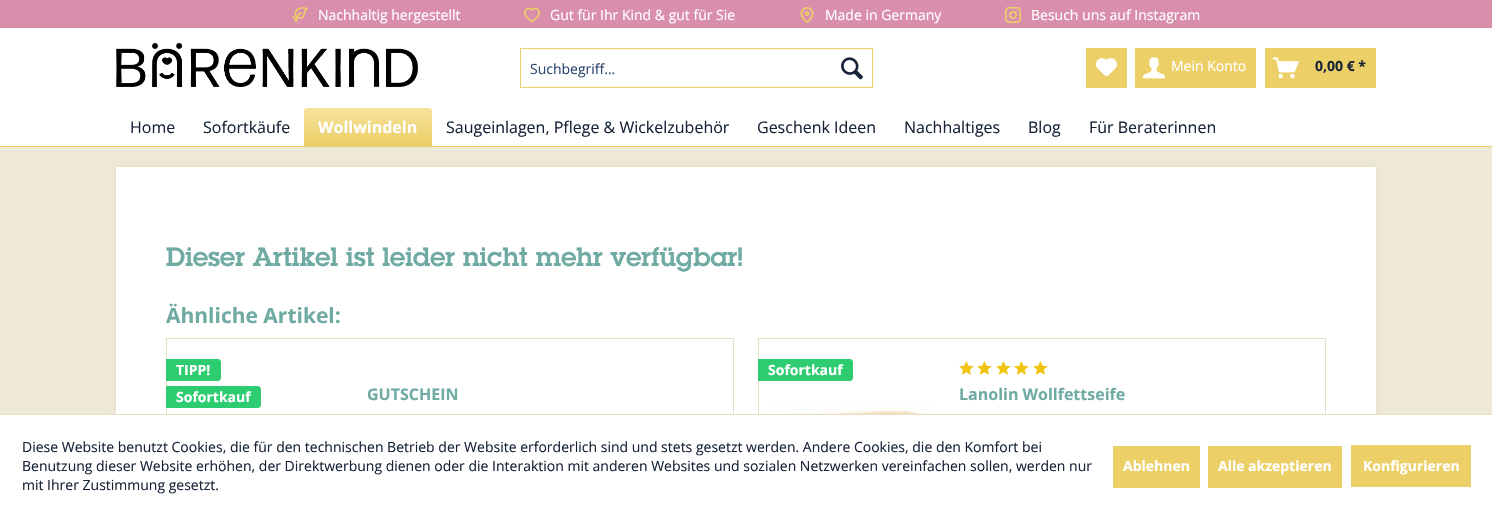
static SkFont makeFont(const char* family, int weight, float size, bool italic = false) {
  SkFontStyle style(weight, SkFontStyle::kNormal_Width,
    italic ? SkFontStyle::kItalic_Slant : SkFontStyle::kUpright_Slant);
  SkFont result(fontMgr->matchFamilyStyle(family, style), size);
  result.setSubpixel(true);
  return result;
}

static void text(SkCanvas* c, const char* s, float x, float y, const SkFont& font, SkColor color) {
  SkPaint ink(SkColor4f::FromColor(color));
  ink.setAntiAlias(true);
  c->drawString(s, x, y, font, ink);
}

static void box(SkCanvas* c, float l, float t, float r, float b, SkColor color) {
  SkPaint ink(SkColor4f::FromColor(color));
  ink.setAntiAlias(true);
  c->drawRect(SkRect::MakeLTRB(l, t, r, b), ink);
}

static void picture(SkCanvas* c, const char* path, float l, float t, float r, float b) {
  auto image = SkImages::DeferredFromEncodedData(SkData::MakeFromFileName(path));
  c->drawImageRect(image, SkRect::MakeLTRB(l, t, r, b), SkSamplingOptions());
}

void draw(SkCanvas* c) {
  SkPaint paint;
  paint.setAntiAlias(true);
  c->clear(0xffeee9d7);
  box(c, 0, 28, 1492, 146, 0xffffffff);
  box(c, 0, 0, 1492, 28, 0xffd98fac);
  picture(c, "img_01.png", 292, 7, 308, 23);
  SkFont face1 = makeFont("Open Sans", 400, 14);
  text(c, "Nachhaltig hergestellt", 318, 20, face1, 0xffffffff);
  picture(c, "img_02.png", 524, 7, 540, 23);
  text(c, "Gut für Ihr Kind & gut für Sie", 550, 20, face1, 0xffffffff);
  picture(c, "img_03.png", 800, 7, 814, 23);
  text(c, "Made in Germany", 825, 20, face1, 0xffffffff);
  picture(c, "img_04.png", 1005, 7, 1021, 23);
  text(c, "Besuch uns auf Instagram", 1031, 20, face1, 0xffffffff);
  picture(c, "img_05.png", 116, 43, 418, 87);
  paint.setStyle(SkPaint::kStroke_Style);
  paint.setStrokeWidth(1);
  paint.setColor(0xffeccf67);
  c->drawRect(SkRect::MakeLTRB(520.5f, 48.5f, 872.5f, 87.5f), paint);
  text(c, "Suchbegriff...", 530, 74, face1, 0xff2c466e);
  picture(c, "img_06.png", 841, 57, 863, 80);
  box(c, 1086, 48, 1127, 88, 0xffeccf67);
  picture(c, "img_07.png", 1096, 58, 1117, 77);
  box(c, 1135, 48, 1256, 88, 0xffeccf67);
  picture(c, "img_08.png", 1143, 57, 1165, 79);
  text(c, "Mein Konto", 1171, 71, face1, 0xffffffff);
  box(c, 1265, 48, 1376, 88, 0xffeccf67);
  picture(c, "img_09.png", 1273, 57, 1299, 79);
  SkFont face2 = makeFont("Open Sans", 700, 14);
  text(c, "0,00 € *", 1315, 71, face2, 0xff162337);
  box(c, 0, 146, 1492, 147, 0xffeccf67);
  SkFont face3 = makeFont("Open Sans", 400, 16);
  text(c, "Home", 130, 133, face3, 0xff162337);
  text(c, "Sofortkäufe", 203, 133, face3, 0xff162337);
  paint.setStyle(SkPaint::kFill_Style);
  {
    const SkColor colors[] = {0xfff6e29b, 0xffeccf67};
    const float stops[] = {0, 1};
    const SkPoint ends[] = {{368, 108}, {368, 146}};
    paint.setShader(SkGradientShader::MakeLinear(ends, colors, stops, 2, SkTileMode::kClamp));
    paint.setAlpha(255);
  }
  c->drawPath(SkPathBuilder().moveTo(307, 108).lineTo(429, 108).cubicTo(430.5f, 108, 432, 109.5f, 432, 111).lineTo(432, 146).lineTo(304, 146).lineTo(304, 111).cubicTo(304, 109.5f, 305.5f, 108, 307, 108).close().detach(), paint);
  SkFont face4 = makeFont("Open Sans", 700, 16);
  text(c, "Wollwindeln", 318, 133, face4, 0xffffffff);
  text(c, "Saugeinlagen, Pflege & Wickelzubehör", 446, 133, face3, 0xff162337);
  text(c, "Geschenk Ideen", 757, 133, face3, 0xff162337);
  text(c, "Nachhaltiges", 904, 133, face3, 0xff162337);
  text(c, "Blog", 1028, 133, face3, 0xff162337);
  text(c, "Für Beraterinnen", 1089, 133, face3, 0xff162337);
  paint.setShader(nullptr);
  paint.setColor(0xffe6e0c5);
  paint.setMaskFilter(SkMaskFilter::MakeBlur(kNormal_SkBlurStyle, 2));
  c->drawRect(SkRect::MakeLTRB(115, 166, 1377, 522), paint);
  paint.setMaskFilter(nullptr);
  box(c, 116, 167, 1376, 414, 0xffffffff);
  SkFont face5 = makeFont("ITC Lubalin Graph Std", 600, 26);
  text(c, "Dieser Artikel ist leider nicht mehr verfügbar!", 166, 266, face5, 0xff6faaa3);
  SkFont face6 = makeFont("Open Sans", 700, 21);
  text(c, "Ähnliche Artikel:", 166, 323, face6, 0xff6faaa3);
  paint.setStyle(SkPaint::kStroke_Style);
  c->drawRect(SkRect::MakeLTRB(166.5f, 338.5f, 733.5f, 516.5f), paint);
  paint.setStyle(SkPaint::kFill_Style);
  paint.setColor(0xff2ecc71);
  c->drawPath(SkPathBuilder().moveTo(166, 359).lineTo(218, 359).cubicTo(219.5f, 359, 221, 360.5f, 221, 362).lineTo(221, 378).cubicTo(221, 379.5f, 219.5f, 381, 218, 381).lineTo(166, 381).close().detach(), paint);
  text(c, "TIPP!", 176, 375, face2, 0xffffffff);
  c->drawPath(SkPathBuilder().moveTo(166, 386).lineTo(258, 386).cubicTo(259.5f, 386, 261, 387.5f, 261, 389).lineTo(261, 405).cubicTo(261, 406.5f, 259.5f, 408, 258, 408).lineTo(166, 408).close().detach(), paint);
  text(c, "Sofortkauf", 176, 402, face2, 0xffffffff);
  text(c, "GUTSCHEIN", 367, 400, face4, 0xff6faaa3);
  paint.setStyle(SkPaint::kStroke_Style);
  paint.setColor(0xffe6e0c5);
  c->drawRect(SkRect::MakeLTRB(758.5f, 338.5f, 1325.5f, 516.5f), paint);
  paint.setStyle(SkPaint::kFill_Style);
  paint.setColor(0xff2ecc71);
  c->drawPath(SkPathBuilder().moveTo(758, 359).lineTo(850, 359).cubicTo(851.5f, 359, 853, 360.5f, 853, 362).lineTo(853, 378).cubicTo(853, 379.5f, 851.5f, 381, 850, 381).lineTo(758, 381).close().detach(), paint);
  text(c, "Sofortkauf", 768, 375, face2, 0xffffffff);
  picture(c, "img_10.png", 959, 361, 974, 375);
  picture(c, "img_10.png", 977, 361, 992, 375);
  picture(c, "img_10.png", 996, 361, 1011, 375);
  picture(c, "img_10.png", 1014, 361, 1029, 375);
  picture(c, "img_10.png", 1033, 361, 1048, 375);
  text(c, "Lanolin Wollfettseife", 959, 400, face4, 0xff6faaa3);
  picture(c, "img_11.png", 772, 404, 932, 414);
  box(c, 0, 415, 1492, 516, 0xffffffff);
  box(c, 0, 414, 1492, 415, 0xffe6e0c5);
  text(c, "Diese Website benutzt Cookies, die für den technischen Betrieb der Website erforderlich sind und stets gesetzt werden. Andere Cookies, die den Komfort bei", 22, 452, face1, 0xff162337);
  text(c, "Benutzung dieser Website erhöhen, der Direktwerbung dienen oder die Interaktion mit anderen Websites und sozialen Netzwerken vereinfachen sollen, werden nur", 22, 471, face1, 0xff162337);
  text(c, "mit Ihrer Zustimmung gesetzt.", 22, 490, face1, 0xff162337);
  box(c, 1113, 446, 1200, 488, 0xffeccf67);
  text(c, "Ablehnen", 1123, 471, face2, 0xffffffff);
  box(c, 1208, 446, 1342, 488, 0xffeccf67);
  text(c, "Alle akzeptieren", 1218, 471, face2, 0xffffffff);
  box(c, 1351, 445, 1471, 487, 0xffeccf67);
  text(c, "Konfigurieren", 1363, 471, face2, 0xffffffff);
}
